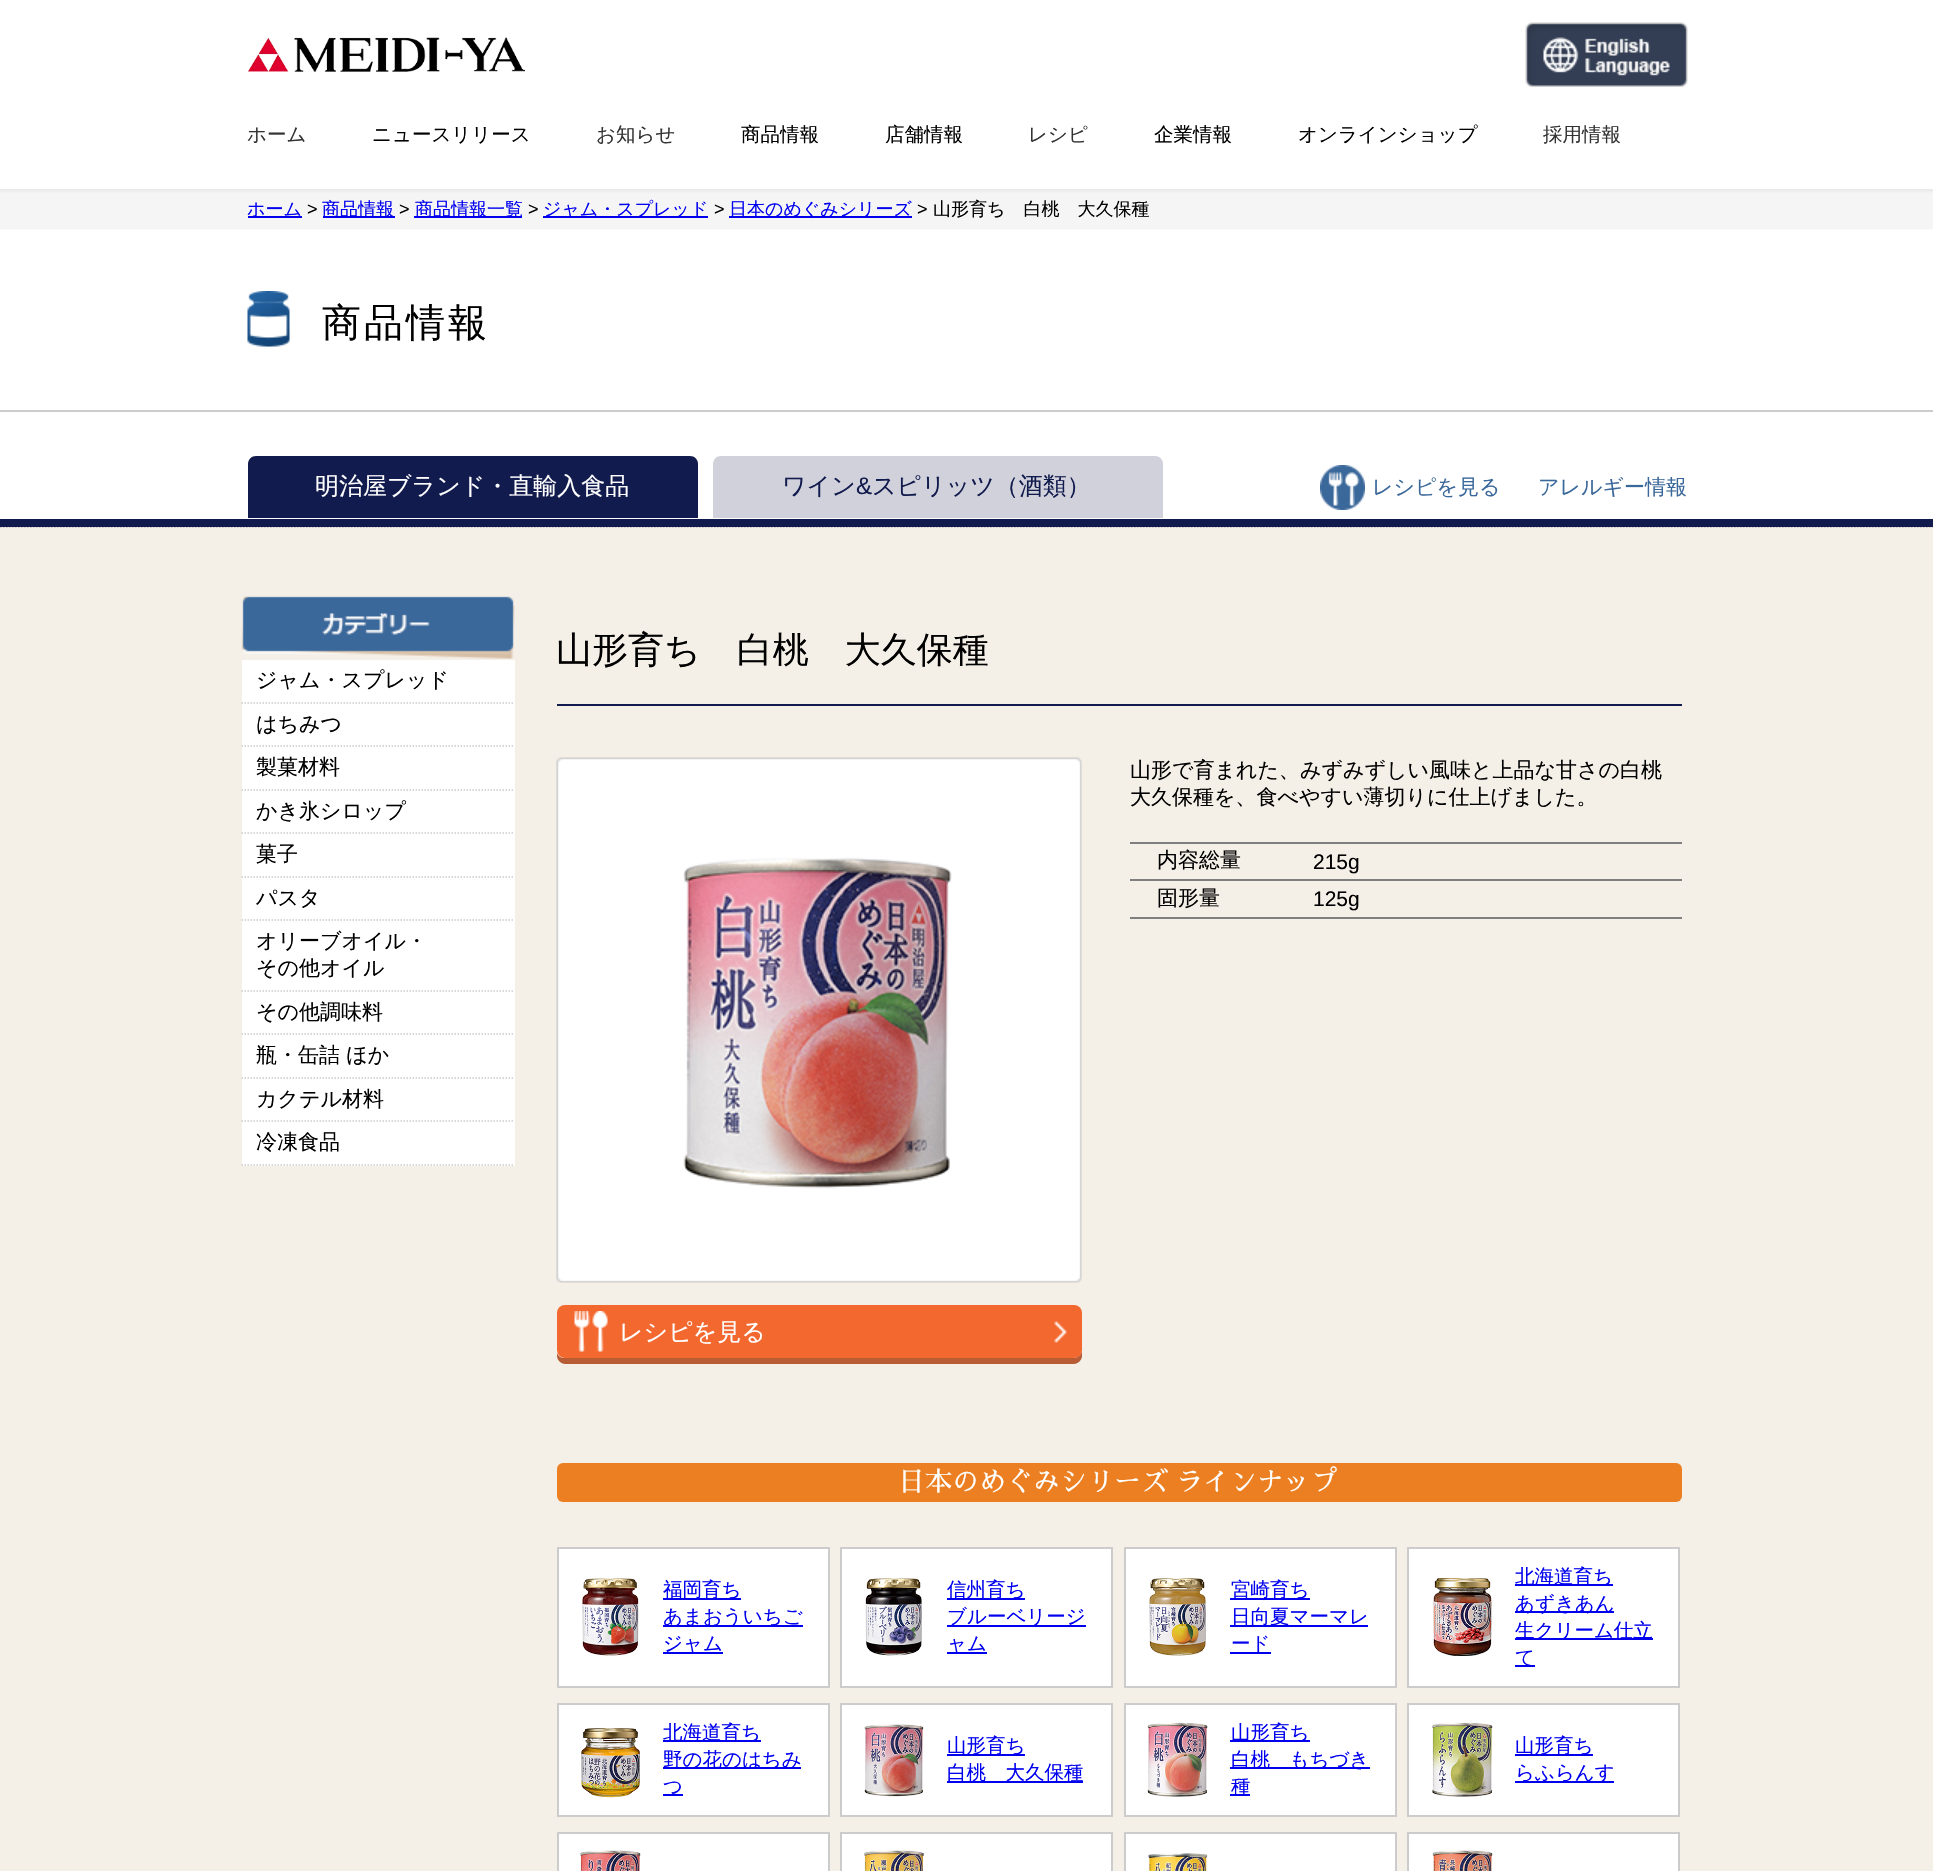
static SkFont makeFont(const char* family, int weight, float size, bool italic = false) {
  SkFontStyle style(weight, SkFontStyle::kNormal_Width,
    italic ? SkFontStyle::kItalic_Slant : SkFontStyle::kUpright_Slant);
  SkFont result(fontMgr->matchFamilyStyle(family, style), size);
  result.setSubpixel(true);
  return result;
}

static void text(SkCanvas* c, const char* s, float x, float y, const SkFont& font, SkColor color) {
  SkPaint ink(SkColor4f::FromColor(color));
  ink.setAntiAlias(true);
  c->drawString(s, x, y, font, ink);
}

static void spacedText(SkCanvas* c, const char* s, float x, float y, const SkFont& font, const SkPaint& ink, float letter, float word) {
  std::vector<SkGlyphID> glyphs(font.countText(s, strlen(s), SkTextEncoding::kUTF8));
  std::vector<float> xs(glyphs.size());
  font.textToGlyphs(s, strlen(s), SkTextEncoding::kUTF8, glyphs);
  font.getXPos(glyphs, xs, x);
  float extra = 0;
  for (size_t i = 0; i < glyphs.size(); i++) {
    xs[i] += extra;
    extra += letter + word * (glyphs[i] == font.unicharToGlyph(' '));
  }
  c->drawTextBlob(SkTextBlob::MakeFromPosHGlyphs(glyphs, xs, y, font), 0, 0, ink);
}

static void box(SkCanvas* c, float l, float t, float r, float b, SkColor color) {
  SkPaint ink(SkColor4f::FromColor(color));
  ink.setAntiAlias(true);
  c->drawRect(SkRect::MakeLTRB(l, t, r, b), ink);
}

static void roundBox(SkCanvas* c, float l, float t, float r, float b, float radius, SkColor color) {
  SkPaint ink(SkColor4f::FromColor(color));
  ink.setAntiAlias(true);
  c->drawRoundRect(SkRect::MakeLTRB(l, t, r, b), radius, radius, ink);
}

static void picture(SkCanvas* c, const char* path, float l, float t, float r, float b) {
  auto image = SkImages::DeferredFromEncodedData(SkData::MakeFromFileName(path));
  c->drawImageRect(image, SkRect::MakeLTRB(l, t, r, b), SkSamplingOptions());
}

void draw(SkCanvas* c) {
  SkPaint paint;
  paint.setAntiAlias(true);
  c->clear(0xffffffff);
  picture(c, "img_01.png", 247, 37, 525, 72);
  picture(c, "img_02.png", 1525, 22, 1688, 87);
  SkFont face1 = makeFont("WenQuanYi Zen Hei", 500, 19.5f);
  text(c, "ホーム", 247, 141, face1, 0xff333333);
  text(c, "ニュースリリース", 372, 141, face1, 0xff000000);
  text(c, "お知らせ", 596, 141, face1, 0xff333333);
  text(c, "商品情報", 741, 141, face1, 0xff000000);
  text(c, "店舗情報", 885, 141, face1, 0xff000000);
  text(c, "レシピ", 1028, 141, face1, 0xff333333);
  text(c, "企業情報", 1154, 141, face1, 0xff000000);
  text(c, "オンラインショップ", 1298, 141, face1, 0xff000000);
  text(c, "採用情報", 1543, 141, face1, 0xff333333);
  picture(c, "img_03.png", 0, 189, 1933, 230);
  box(c, 248, 216, 302, 218, 0xff0000ee);
  SkFont face2 = makeFont("WenQuanYi Zen Hei", 500, 18);
  text(c, "ホーム", 247, 215, face2, 0xff0000ee);
  SkFont face3 = makeFont("Liberation Sans", 400, 18);
  text(c, ">", 307, 215, face3, 0xff000000);
  box(c, 323, 216, 395, 218, 0xff0000ee);
  text(c, "商品情報", 322, 215, face2, 0xff0000ee);
  text(c, ">", 399, 215, face3, 0xff000000);
  box(c, 414, 216, 522, 218, 0xff0000ee);
  text(c, "商品情報一覧", 415, 215, face2, 0xff0000ee);
  text(c, ">", 528, 215, face3, 0xff000000);
  box(c, 543, 216, 708, 218, 0xff0000ee);
  text(c, "ジャム・スプレッド", 543, 215, face2, 0xff0000ee);
  text(c, ">", 714, 215, face3, 0xff000000);
  box(c, 729, 216, 912, 218, 0xff0000ee);
  text(c, "日本のめぐみシリーズ", 729, 215, face2, 0xff0000ee);
  text(c, ">", 917, 215, face3, 0xff000000);
  text(c, "山形育ち　白桃　大久保種", 933, 215, face2, 0xff000000);
  box(c, 0, 410, 1933, 412, 0xffcccccc);
  picture(c, "img_04.png", 247, 291, 290, 347);
  SkFont face4 = makeFont("WenQuanYi Zen Hei", 500, 39);
  paint.setColor(0xff000000);
  spacedText(c, "商品情報", 322, 336, face4, paint, 3, 0);
  box(c, 0, 527, 1933, 1871, 0xfff4efe7);
  paint.setStyle(SkPaint::kStroke_Style);
  paint.setStrokeWidth(1.5f);
  paint.setColor(0xffbbbbbb);
  paint.setPathEffect(SkDashPathEffect::Make({{1.5f, 1.5f}}, 0));
  c->drawPath(SkPathBuilder().moveTo(0, 527).lineTo(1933.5f, 527).detach(), paint);
  paint.setPathEffect(nullptr);
  box(c, 0, 519, 1933, 527, 0xff121b4d);
  paint.setStyle(SkPaint::kFill_Style);
  paint.setColor(0xff121b4d);
  c->drawPath(SkPathBuilder().moveTo(256, 456).lineTo(690, 456).cubicTo(694.5f, 456, 698, 459.5f, 698, 464).lineTo(698, 518).lineTo(248, 518).lineTo(248, 464).cubicTo(248, 459.5f, 251.5f, 456, 256, 456).close().detach(), paint);
  SkFont face5 = makeFont("WenQuanYi Zen Hei", 500, 24);
  text(c, "明治屋ブランド・直輸入食品", 315, 494, face5, 0xffffffff);
  paint.setColor(0xffd0d1db);
  c->drawPath(SkPathBuilder().moveTo(721, 456).lineTo(1155, 456).cubicTo(1159.5f, 456, 1163, 459.5f, 1163, 464).lineTo(1163, 518).lineTo(713, 518).lineTo(713, 464).cubicTo(713, 459.5f, 716.5f, 456, 721, 456).close().detach(), paint);
  text(c, "ワイン", 782, 494, face5, 0xff121b4d);
  SkFont face6 = makeFont("Liberation Sans", 400, 24);
  text(c, "&", 856, 494, face6, 0xff121b4d);
  text(c, "スピリッツ（酒類）", 872, 494, face5, 0xff121b4d);
  picture(c, "img_05.png", 1320, 465, 1365, 510);
  SkFont face7 = makeFont("WenQuanYi Zen Hei", 500, 21);
  text(c, "レシピを見る", 1372, 494, face7, 0xff3b689a);
  text(c, "アレルギー情報", 1538, 494, face7, 0xff3b689a);
  picture(c, "img_06.png", 241, 596, 515, 659);
  box(c, 242, 660, 515, 1166, 0xffffffff);
  paint.setStyle(SkPaint::kStroke_Style);
  paint.setColor(0xffcccccc);
  paint.setPathEffect(SkDashPathEffect::Make({{1.5f, 1.5f}}, 0));
  c->drawPath(SkPathBuilder().moveTo(241.5f, 703).lineTo(514.5f, 703).detach(), paint);
  paint.setPathEffect(nullptr);
  text(c, "ジャム・スプレッド", 256, 687, face7, 0xff000000);
  paint.setPathEffect(SkDashPathEffect::Make({{1.5f, 1.5f}}, 0));
  c->drawPath(SkPathBuilder().moveTo(241.5f, 746).lineTo(514.5f, 746).detach(), paint);
  paint.setPathEffect(nullptr);
  text(c, "はちみつ", 256, 731, face7, 0xff000000);
  paint.setPathEffect(SkDashPathEffect::Make({{1.5f, 1.5f}}, 0));
  c->drawPath(SkPathBuilder().moveTo(241.5f, 790).lineTo(514.5f, 790).detach(), paint);
  paint.setPathEffect(nullptr);
  text(c, "製菓材料", 256, 774, face7, 0xff000000);
  paint.setPathEffect(SkDashPathEffect::Make({{1.5f, 1.5f}}, 0));
  c->drawPath(SkPathBuilder().moveTo(241.5f, 833).lineTo(514.5f, 833).detach(), paint);
  paint.setPathEffect(nullptr);
  text(c, "かき氷シロップ", 256, 818, face7, 0xff000000);
  paint.setPathEffect(SkDashPathEffect::Make({{1.5f, 1.5f}}, 0));
  c->drawPath(SkPathBuilder().moveTo(241.5f, 877).lineTo(514.5f, 877).detach(), paint);
  paint.setPathEffect(nullptr);
  text(c, "菓子", 256, 861, face7, 0xff000000);
  paint.setPathEffect(SkDashPathEffect::Make({{1.5f, 1.5f}}, 0));
  c->drawPath(SkPathBuilder().moveTo(241.5f, 920).lineTo(514.5f, 920).detach(), paint);
  paint.setPathEffect(nullptr);
  text(c, "パスタ", 256, 905, face7, 0xff000000);
  paint.setPathEffect(SkDashPathEffect::Make({{1.5f, 1.5f}}, 0));
  c->drawPath(SkPathBuilder().moveTo(241.5f, 991).lineTo(514.5f, 991).detach(), paint);
  paint.setPathEffect(nullptr);
  text(c, "オリーブオイル・", 256, 948, face7, 0xff000000);
  text(c, "その他オイル", 256, 975, face7, 0xff000000);
  paint.setPathEffect(SkDashPathEffect::Make({{1.5f, 1.5f}}, 0));
  c->drawPath(SkPathBuilder().moveTo(241.5f, 1034).lineTo(514.5f, 1034).detach(), paint);
  paint.setPathEffect(nullptr);
  text(c, "その他調味料", 256, 1019, face7, 0xff000000);
  paint.setPathEffect(SkDashPathEffect::Make({{1.5f, 1.5f}}, 0));
  c->drawPath(SkPathBuilder().moveTo(241.5f, 1078).lineTo(514.5f, 1078).detach(), paint);
  paint.setPathEffect(nullptr);
  text(c, "瓶・缶詰 ほか", 256, 1062, face7, 0xff000000);
  paint.setPathEffect(SkDashPathEffect::Make({{1.5f, 1.5f}}, 0));
  c->drawPath(SkPathBuilder().moveTo(241.5f, 1121).lineTo(514.5f, 1121).detach(), paint);
  paint.setPathEffect(nullptr);
  text(c, "カクテル材料", 256, 1106, face7, 0xff000000);
  paint.setPathEffect(SkDashPathEffect::Make({{1.5f, 1.5f}}, 0));
  c->drawPath(SkPathBuilder().moveTo(241.5f, 1165).lineTo(514.5f, 1165).detach(), paint);
  paint.setPathEffect(nullptr);
  text(c, "冷凍食品", 256, 1149, face7, 0xff000000);
  box(c, 557, 704, 1682, 706, 0xff121b4d);
  SkFont face8 = makeFont("WenQuanYi Zen Hei", 500, 36);
  text(c, "山形育ち　白桃　大久保種", 556, 662, face8, 0xff000000);
  text(c, "山形で育まれた、みずみずしい風味と上品な甘さの白桃", 1130, 777, face7, 0xff000000);
  text(c, "大久保種を、食べやすい薄切りに仕上げました。", 1130, 804, face7, 0xff000000);
  box(c, 1130, 842, 1682, 844, 0xff7f7f7f);
  text(c, "内容総量", 1157, 867, face7, 0xff000000);
  box(c, 1130, 879, 1682, 881, 0xff7f7f7f);
  SkFont face9 = makeFont("Liberation Sans", 400, 21);
  text(c, "215g", 1313, 869, face9, 0xff000000);
  text(c, "固形量", 1157, 905, face7, 0xff000000);
  box(c, 1130, 917, 1682, 919, 0xff7f7f7f);
  text(c, "125g", 1313, 906, face9, 0xff000000);
  picture(c, "img_07.png", 556, 757, 1082, 1283);
  paint.setStyle(SkPaint::kFill_Style);
  paint.setColor(0xffb85c36);
  c->drawPath(SkPathBuilder().moveTo(557, 1353).lineTo(557, 1356).cubicTo(557, 1360, 561, 1364, 565, 1364).lineTo(1074, 1364).cubicTo(1078, 1364, 1082, 1360, 1082, 1356).lineTo(1082, 1319).lineTo(1082, 1316).lineTo(1082, 1350).cubicTo(1082, 1354, 1078, 1358, 1074, 1358).lineTo(564, 1358).cubicTo(561, 1358, 558, 1356, 557, 1353).close().detach(), paint);
  roundBox(c, 557, 1305, 1082, 1358, 8, 0xfff3682e);
  picture(c, "img_08.png", 574, 1311, 1067, 1352);
  text(c, "レシピを見る", 619, 1340, face5, 0xffffffff);
  roundBox(c, 557, 1463, 1682, 1502, 6, 0xffeb7f21);
  SkFont face10 = makeFont("Sawarabi Mincho", 400, 27);
  text(c, "日本のめぐみシリーズ ラインナップ", 898, 1491, face10, 0xffffffff);
  paint.setColor(0xffffffff);
  c->drawRect(SkRect::MakeLTRB(558, 1548, 829, 1687), paint);
  paint.setStyle(SkPaint::kStroke_Style);
  paint.setStrokeWidth(2);
  paint.setColor(0xffcccccc);
  c->drawRect(SkRect::MakeLTRB(558, 1548, 829, 1687), paint);
  picture(c, "img_09.png", 582, 1578, 639, 1656);
  box(c, 663, 1598, 741, 1600, 0xff0000ee);
  text(c, "福岡育ち", 663, 1596, face1, 0xff0000ee);
  box(c, 663, 1625, 803, 1627, 0xff0000ee);
  text(c, "あまおういちご", 663, 1623, face1, 0xff0000ee);
  box(c, 663, 1652, 723, 1654, 0xff0000ee);
  text(c, "ジャム", 663, 1650, face1, 0xff0000ee);
  paint.setStyle(SkPaint::kFill_Style);
  paint.setColor(0xffffffff);
  c->drawRect(SkRect::MakeLTRB(841, 1548, 1112, 1687), paint);
  paint.setStyle(SkPaint::kStroke_Style);
  paint.setColor(0xffcccccc);
  c->drawRect(SkRect::MakeLTRB(841, 1548, 1112, 1687), paint);
  picture(c, "img_10.png", 865, 1578, 922, 1656);
  box(c, 947, 1598, 1025, 1600, 0xff0000ee);
  text(c, "信州育ち", 947, 1596, face1, 0xff0000ee);
  box(c, 947, 1625, 1086, 1627, 0xff0000ee);
  text(c, "ブルーベリージ", 947, 1623, face1, 0xff0000ee);
  box(c, 947, 1652, 987, 1654, 0xff0000ee);
  text(c, "ャム", 947, 1650, face1, 0xff0000ee);
  paint.setStyle(SkPaint::kFill_Style);
  paint.setColor(0xffffffff);
  c->drawRect(SkRect::MakeLTRB(1125, 1548, 1396, 1687), paint);
  paint.setStyle(SkPaint::kStroke_Style);
  paint.setColor(0xffcccccc);
  c->drawRect(SkRect::MakeLTRB(1125, 1548, 1396, 1687), paint);
  picture(c, "img_11.png", 1149, 1578, 1206, 1656);
  box(c, 1230, 1598, 1310, 1600, 0xff0000ee);
  text(c, "宮崎育ち", 1231, 1596, face1, 0xff0000ee);
  box(c, 1230, 1625, 1368, 1627, 0xff0000ee);
  text(c, "日向夏マーマレ", 1231, 1623, face1, 0xff0000ee);
  box(c, 1230, 1652, 1271, 1654, 0xff0000ee);
  text(c, "ード", 1231, 1650, face1, 0xff0000ee);
  paint.setStyle(SkPaint::kFill_Style);
  paint.setColor(0xffffffff);
  c->drawRect(SkRect::MakeLTRB(1408, 1548, 1679, 1687), paint);
  paint.setStyle(SkPaint::kStroke_Style);
  paint.setColor(0xffcccccc);
  c->drawRect(SkRect::MakeLTRB(1408, 1548, 1679, 1687), paint);
  picture(c, "img_12.png", 1433, 1578, 1492, 1656);
  box(c, 1515, 1584, 1613, 1586, 0xff0000ee);
  text(c, "北海道育ち", 1515, 1583, face1, 0xff0000ee);
  box(c, 1515, 1611, 1614, 1613, 0xff0000ee);
  text(c, "あずきあん", 1515, 1610, face1, 0xff0000ee);
  box(c, 1515, 1638, 1653, 1640, 0xff0000ee);
  text(c, "生クリーム仕立", 1515, 1637, face1, 0xff0000ee);
  box(c, 1515, 1665, 1535, 1667, 0xff0000ee);
  text(c, "て", 1515, 1664, face1, 0xff0000ee);
  paint.setStyle(SkPaint::kFill_Style);
  paint.setColor(0xffffffff);
  c->drawRect(SkRect::MakeLTRB(558, 1704, 829, 1816), paint);
  paint.setStyle(SkPaint::kStroke_Style);
  paint.setColor(0xffcccccc);
  c->drawRect(SkRect::MakeLTRB(558, 1704, 829, 1816), paint);
  picture(c, "img_13.png", 581, 1728, 640, 1798);
  box(c, 663, 1740, 761, 1742, 0xff0000ee);
  text(c, "北海道育ち", 663, 1739, face1, 0xff0000ee);
  box(c, 663, 1767, 801, 1769, 0xff0000ee);
  text(c, "野の花のはちみ", 663, 1766, face1, 0xff0000ee);
  box(c, 663, 1794, 683, 1796, 0xff0000ee);
  text(c, "つ", 663, 1793, face1, 0xff0000ee);
  paint.setStyle(SkPaint::kFill_Style);
  paint.setColor(0xffffffff);
  c->drawRect(SkRect::MakeLTRB(841, 1704, 1112, 1816), paint);
  paint.setStyle(SkPaint::kStroke_Style);
  paint.setColor(0xffcccccc);
  c->drawRect(SkRect::MakeLTRB(841, 1704, 1112, 1816), paint);
  picture(c, "img_14.png", 864, 1724, 924, 1797);
  box(c, 947, 1754, 1025, 1756, 0xff0000ee);
  text(c, "山形育ち", 947, 1752, face1, 0xff0000ee);
  box(c, 947, 1781, 1083, 1783, 0xff0000ee);
  text(c, "白桃　大久保種", 947, 1779, face1, 0xff0000ee);
  paint.setStyle(SkPaint::kFill_Style);
  paint.setColor(0xffffffff);
  c->drawRect(SkRect::MakeLTRB(1125, 1704, 1396, 1816), paint);
  paint.setStyle(SkPaint::kStroke_Style);
  paint.setColor(0xffcccccc);
  c->drawRect(SkRect::MakeLTRB(1125, 1704, 1396, 1816), paint);
  picture(c, "img_15.png", 1147, 1722, 1208, 1797);
  box(c, 1230, 1740, 1310, 1742, 0xff0000ee);
  text(c, "山形育ち", 1231, 1739, face1, 0xff0000ee);
  box(c, 1230, 1767, 1370, 1769, 0xff0000ee);
  text(c, "白桃　もちづき", 1231, 1766, face1, 0xff0000ee);
  box(c, 1230, 1794, 1250, 1796, 0xff0000ee);
  text(c, "種", 1231, 1793, face1, 0xff0000ee);
  paint.setStyle(SkPaint::kFill_Style);
  paint.setColor(0xffffffff);
  c->drawRect(SkRect::MakeLTRB(1408, 1704, 1679, 1816), paint);
  paint.setStyle(SkPaint::kStroke_Style);
  paint.setColor(0xffcccccc);
  c->drawRect(SkRect::MakeLTRB(1408, 1704, 1679, 1816), paint);
  picture(c, "img_16.png", 1432, 1722, 1493, 1797);
  box(c, 1515, 1754, 1593, 1756, 0xff0000ee);
  text(c, "山形育ち", 1515, 1752, face1, 0xff0000ee);
  box(c, 1515, 1781, 1614, 1783, 0xff0000ee);
  text(c, "らふらんす", 1515, 1779, face1, 0xff0000ee);
  paint.setStyle(SkPaint::kFill_Style);
  paint.setColor(0xffffffff);
  c->drawRect(SkRect::MakeLTRB(558, 1833, 829, 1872), paint);
  paint.setStyle(SkPaint::kStroke_Style);
  paint.setColor(0xffcccccc);
  c->drawRect(SkRect::MakeLTRB(558, 1833, 829, 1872), paint);
  picture(c, "img_17.png", 580, 1850, 641, 1871);
  paint.setStyle(SkPaint::kFill_Style);
  paint.setColor(0xffffffff);
  c->drawRect(SkRect::MakeLTRB(841, 1833, 1112, 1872), paint);
  paint.setStyle(SkPaint::kStroke_Style);
  paint.setColor(0xffcccccc);
  c->drawRect(SkRect::MakeLTRB(841, 1833, 1112, 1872), paint);
  picture(c, "img_18.png", 864, 1850, 924, 1871);
  paint.setStyle(SkPaint::kFill_Style);
  paint.setColor(0xffffffff);
  c->drawRect(SkRect::MakeLTRB(1125, 1833, 1396, 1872), paint);
  paint.setStyle(SkPaint::kStroke_Style);
  paint.setColor(0xffcccccc);
  c->drawRect(SkRect::MakeLTRB(1125, 1833, 1396, 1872), paint);
  picture(c, "img_19.png", 1148, 1853, 1208, 1871);
  paint.setStyle(SkPaint::kFill_Style);
  paint.setColor(0xffffffff);
  c->drawRect(SkRect::MakeLTRB(1408, 1833, 1679, 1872), paint);
  paint.setStyle(SkPaint::kStroke_Style);
  paint.setColor(0xffcccccc);
  c->drawRect(SkRect::MakeLTRB(1408, 1833, 1679, 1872), paint);
  picture(c, "img_20.png", 1432, 1850, 1493, 1871);
}
